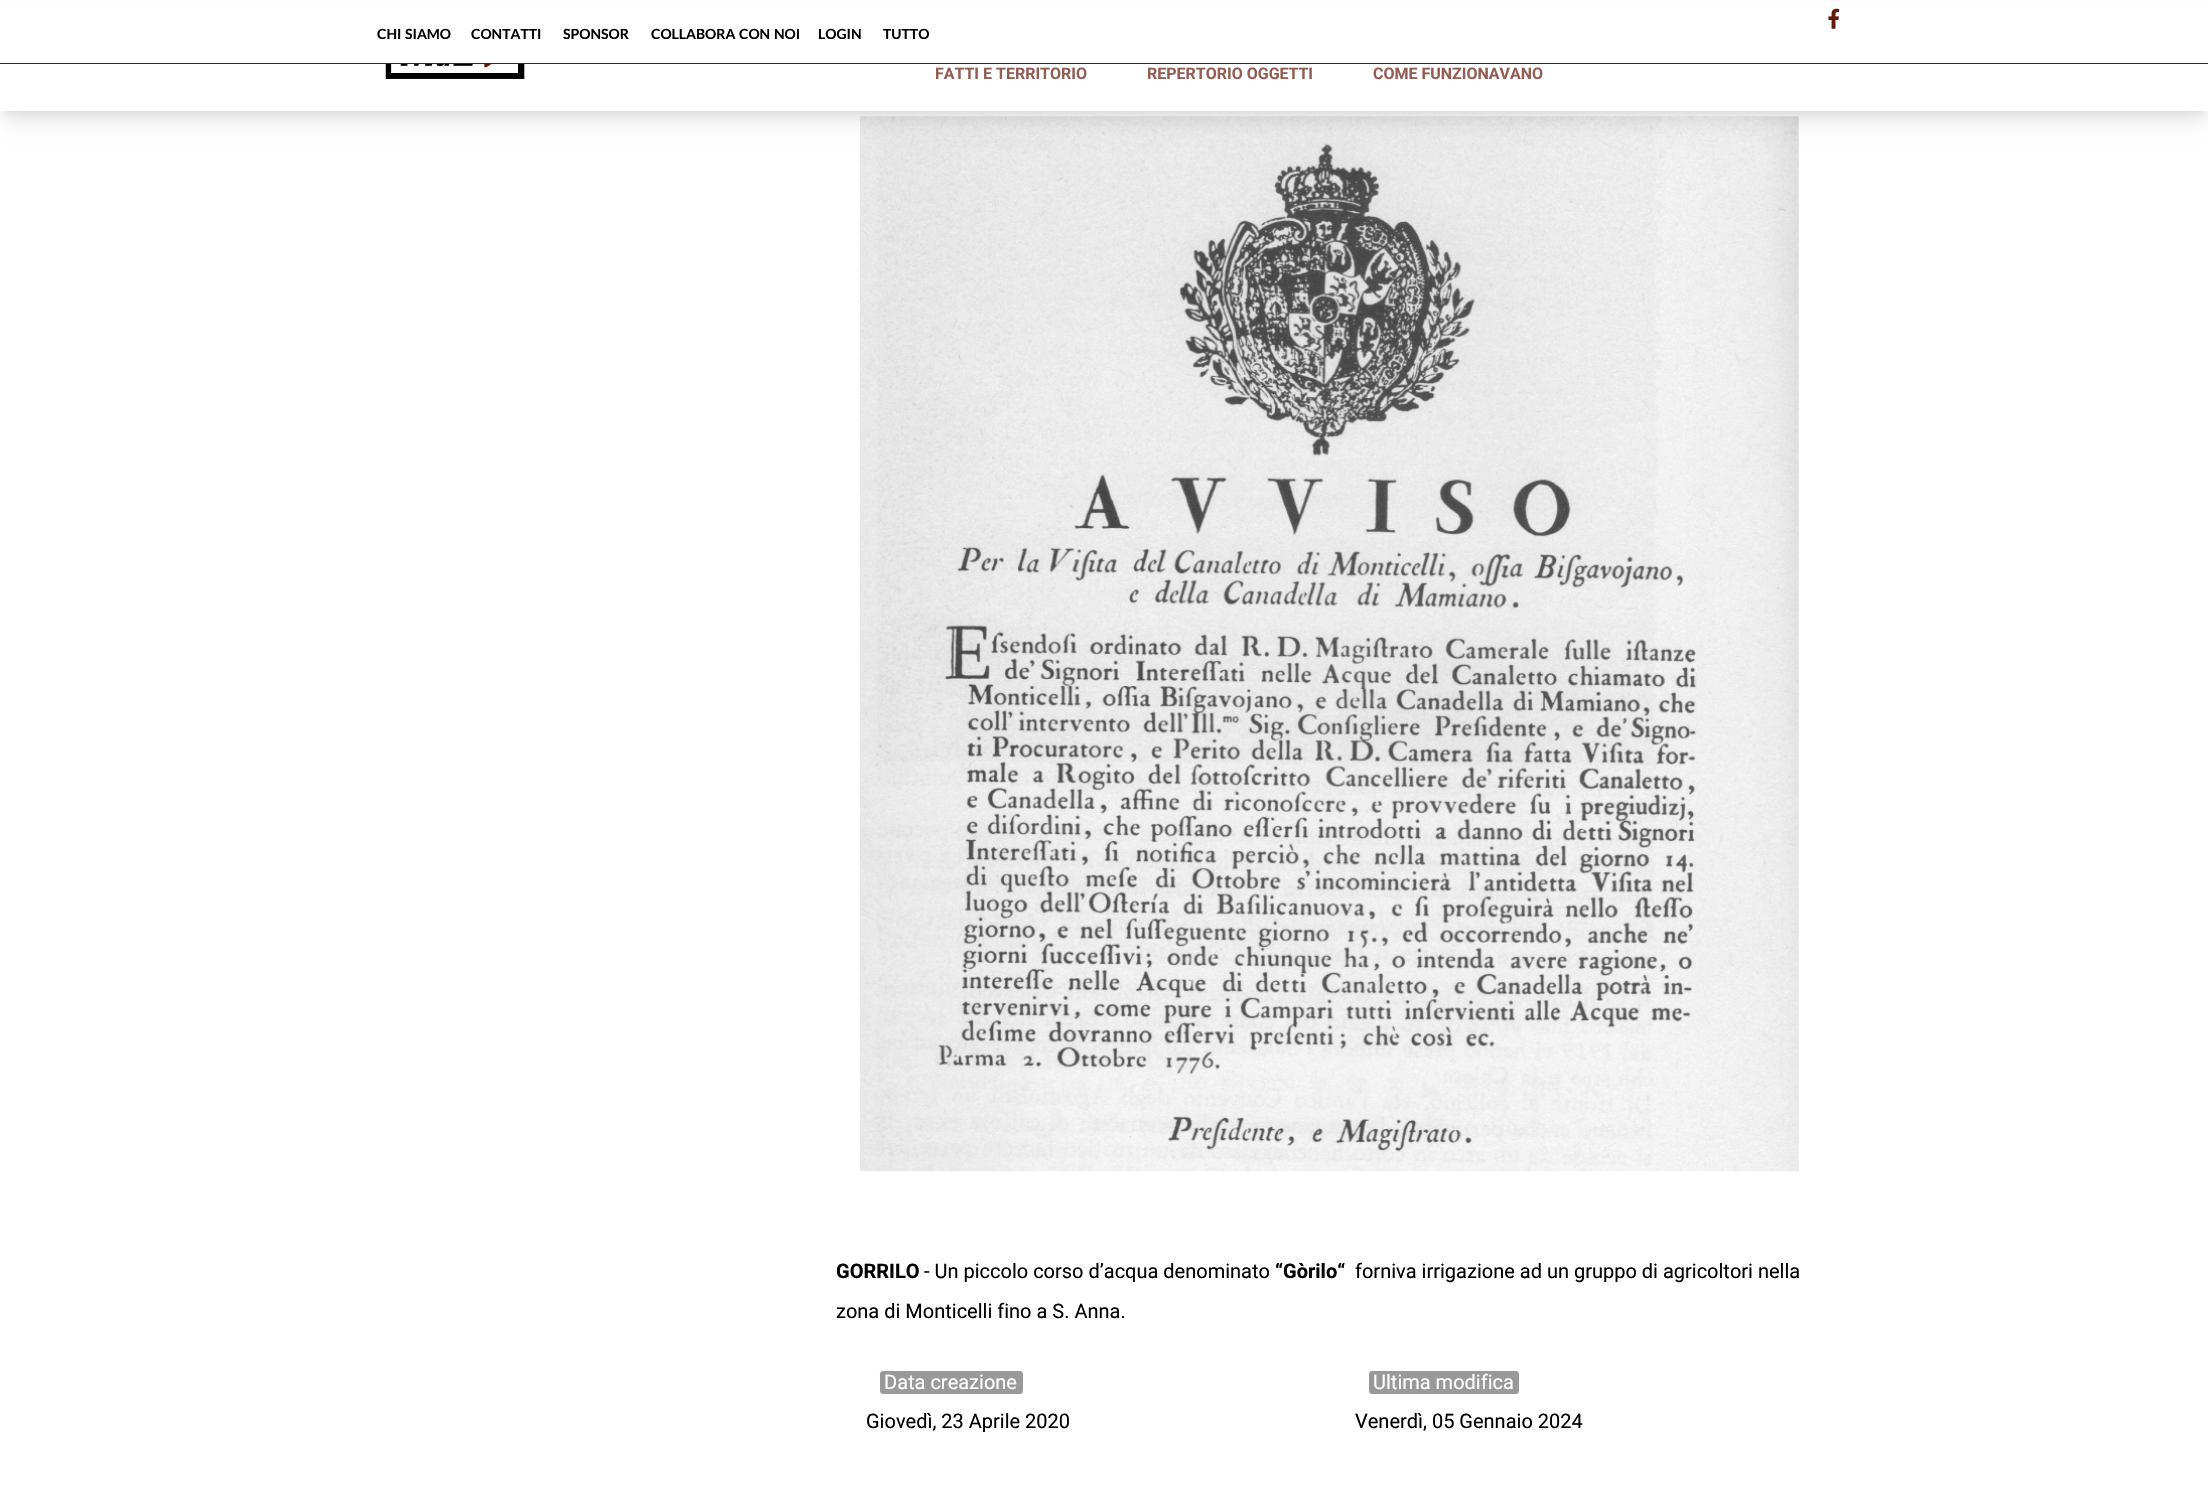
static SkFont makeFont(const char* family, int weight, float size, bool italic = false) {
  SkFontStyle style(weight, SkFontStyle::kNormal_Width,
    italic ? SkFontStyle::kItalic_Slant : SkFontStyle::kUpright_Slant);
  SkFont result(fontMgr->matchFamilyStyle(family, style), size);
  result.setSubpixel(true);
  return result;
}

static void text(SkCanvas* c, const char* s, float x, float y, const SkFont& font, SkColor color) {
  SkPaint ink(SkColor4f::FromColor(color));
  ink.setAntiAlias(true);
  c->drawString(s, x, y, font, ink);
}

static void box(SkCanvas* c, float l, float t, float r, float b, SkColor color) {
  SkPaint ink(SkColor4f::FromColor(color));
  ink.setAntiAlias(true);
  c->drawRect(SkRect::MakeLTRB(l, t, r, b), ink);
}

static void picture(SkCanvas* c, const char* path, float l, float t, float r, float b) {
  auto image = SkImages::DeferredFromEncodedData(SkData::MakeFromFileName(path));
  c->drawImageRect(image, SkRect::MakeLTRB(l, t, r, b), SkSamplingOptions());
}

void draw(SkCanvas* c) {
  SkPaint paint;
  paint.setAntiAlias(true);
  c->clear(0xffffffff);
  picture(c, "img_03.png", 860, 116, 1799, 1172);
  paint.setColor(0x0d000000);
  paint.setMaskFilter(SkMaskFilter::MakeBlur(kNormal_SkBlurStyle, 4));
  c->drawRect(SkRect::MakeLTRB(3, 8, 2206, 114), paint);
  paint.setMaskFilter(nullptr);
  paint.setColor(0x1a000000);
  paint.setMaskFilter(SkMaskFilter::MakeBlur(kNormal_SkBlurStyle, 9.5f));
  c->drawRect(SkRect::MakeLTRB(4, 16, 2205, 120), paint);
  paint.setMaskFilter(nullptr);
  box(c, 0, 2, 2208, 63, 0xffffffff);
  box(c, 0, 63, 2208, 64, 0xff641809);
  picture(c, "img_01.png", 1828, 8, 1840, 29);
  SkFont face1 = makeFont("Lato", 700, 14);
  text(c, "CHI", 377, 39, face1, 0xff000000);
  text(c, "SIAMO", 405, 39, face1, 0xff000000);
  text(c, "CONTATTI", 471, 39, face1, 0xff000000);
  text(c, "SPONSOR", 563, 39, face1, 0xff000000);
  text(c, "COLLABORA", 651, 39, face1, 0xff000000);
  text(c, "CON", 739, 39, face1, 0xff000000);
  text(c, "NOI", 774, 39, face1, 0xff000000);
  text(c, "LOGIN", 818, 39, face1, 0xff000000);
  text(c, "TUTTO", 883, 39, face1, 0xff000000);
  box(c, 0, 64, 2208, 111, 0xffffffff);
  picture(c, "img_02.png", 385, 64, 525, 79);
  SkFont face2 = makeFont("Roboto", 700, 16);
  text(c, "FATTI E TERRITORIO", 935, 79, face2, 0xff935d53);
  text(c, "REPERTORIO OGGETTI", 1147, 79, face2, 0xff935d53);
  text(c, "COME FUNZIONAVANO", 1373, 79, face2, 0xff935d53);
  SkFont face3 = makeFont("Roboto", 700, 20);
  text(c, "GORRILO", 836, 1278, face3, 0xff000000);
  SkFont face4 = makeFont("Roboto", 400, 20);
  text(c, "- Un piccolo corso d’acqua denominato", 924, 1278, face4, 0xff000000);
  text(c, "“Gòrilo“", 1275, 1278, face3, 0xff000000);
  text(c, "forniva irrigazione ad un gruppo di agricoltori nella", 1355, 1278, face4, 0xff000000);
  text(c, "zona di Monticelli fino a S. Anna.", 836, 1318, face4, 0xff000000);
  paint.setColor(0xff999999);
  c->drawRoundRect(SkRect::MakeLTRB(879.5f, 1370.5f, 1023.5f, 1394.5f), 3.5f, 3.5f, paint);
  paint.setStyle(SkPaint::kStroke_Style);
  paint.setStrokeWidth(1);
  paint.setColor(0xffffffff);
  c->drawRoundRect(SkRect::MakeLTRB(879.5f, 1370.5f, 1023.5f, 1394.5f), 3.5f, 3.5f, paint);
  text(c, "Data creazione", 884, 1389, face4, 0xffffffff);
  text(c, "Giovedì, 23 Aprile 2020", 866, 1428, face4, 0xff000000);
  paint.setStyle(SkPaint::kFill_Style);
  paint.setColor(0xff999999);
  c->drawRoundRect(SkRect::MakeLTRB(1368.5f, 1370.5f, 1519.5f, 1394.5f), 3.5f, 3.5f, paint);
  paint.setStyle(SkPaint::kStroke_Style);
  paint.setColor(0xffffffff);
  c->drawRoundRect(SkRect::MakeLTRB(1368.5f, 1370.5f, 1519.5f, 1394.5f), 3.5f, 3.5f, paint);
  text(c, "Ultima modifica", 1373, 1389, face4, 0xffffffff);
  text(c, "Venerdì, 05 Gennaio 2024", 1355, 1428, face4, 0xff000000);
}
